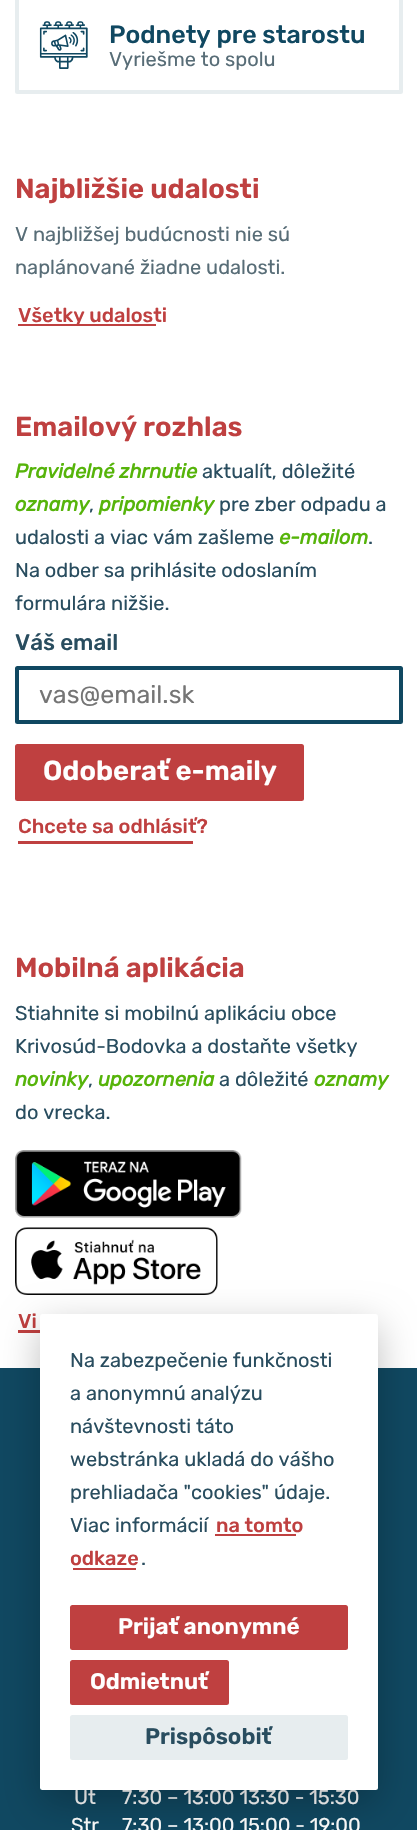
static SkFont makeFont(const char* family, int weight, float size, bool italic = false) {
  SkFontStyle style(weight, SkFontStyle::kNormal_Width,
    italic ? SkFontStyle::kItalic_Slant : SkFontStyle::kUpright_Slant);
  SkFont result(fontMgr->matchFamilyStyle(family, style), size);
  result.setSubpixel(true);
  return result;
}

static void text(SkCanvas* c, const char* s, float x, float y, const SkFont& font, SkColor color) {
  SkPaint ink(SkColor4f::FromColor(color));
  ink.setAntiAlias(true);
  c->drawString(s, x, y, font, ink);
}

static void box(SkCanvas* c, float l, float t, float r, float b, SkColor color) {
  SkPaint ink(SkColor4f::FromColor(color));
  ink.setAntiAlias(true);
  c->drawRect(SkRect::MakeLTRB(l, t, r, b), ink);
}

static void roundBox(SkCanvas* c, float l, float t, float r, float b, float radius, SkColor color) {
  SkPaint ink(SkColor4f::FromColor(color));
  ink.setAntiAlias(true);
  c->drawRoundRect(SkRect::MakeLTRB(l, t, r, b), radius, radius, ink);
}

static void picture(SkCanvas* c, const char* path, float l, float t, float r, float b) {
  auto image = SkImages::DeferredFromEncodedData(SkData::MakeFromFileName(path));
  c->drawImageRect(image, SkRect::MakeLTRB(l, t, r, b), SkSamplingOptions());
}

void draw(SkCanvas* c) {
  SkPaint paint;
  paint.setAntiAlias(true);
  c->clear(0xffffffff);
  paint.setStyle(SkPaint::kStroke_Style);
  paint.setStrokeWidth(4);
  paint.setColor(0xffe7edef);
  c->drawRoundRect(SkRect::MakeLTRB(17, -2, 401, 92), 0.5f, 0.5f, paint);
  picture(c, "img_01.png", 39, 21, 88, 69);
  SkFont face1 = makeFont("Rubik", 500, 25);
  text(c, "Podnety pre starostu", 109, 43, face1, 0xff104861);
  SkFont face2 = makeFont("Rubik", 400, 20);
  text(c, "Vyriešme to spolu", 109, 66, face2, 0xff586d77);
  SkFont face3 = makeFont("Rubik", 600, 27.5f);
  text(c, "Najbližšie udalosti", 15, 198, face3, 0xffbf4040);
  text(c, "V najbližšej budúcnosti nie sú", 15, 241, face2, 0xff586d77);
  text(c, "naplánované žiadne udalosti.", 15, 274, face2, 0xff586d77);
  box(c, 18, 324, 156, 326, 0xffbf4040);
  SkFont face4 = makeFont("Rubik", 500, 20);
  text(c, "Všetky udalosti", 18, 322, face4, 0xffbf4040);
  text(c, "Emailový rozhlas", 15, 436, face3, 0xffbf4040);
  SkFont face5 = makeFont("Rubik", 700, 20, true);
  text(c, "Pravidelné zhrnutie", 15, 478, face5, 0xff56b40a);
  text(c, "aktualít, dôležité", 202, 478, face2, 0xff294d5f);
  text(c, "oznamy", 15, 511, face5, 0xff56b40a);
  text(c, ",", 89, 511, face2, 0xff294d5f);
  text(c, "pripomienky", 99, 511, face5, 0xff56b40a);
  text(c, "pre zber odpadu a", 219, 511, face2, 0xff294d5f);
  text(c, "udalosti a viac vám zašleme", 15, 544, face2, 0xff294d5f);
  text(c, "e-mailom", 279, 544, face5, 0xff56b40a);
  text(c, ".", 368, 544, face2, 0xff294d5f);
  text(c, "Na odber sa prihlásite odoslaním", 15, 577, face2, 0xff294d5f);
  text(c, "formulára nižšie.", 15, 610, face2, 0xff294d5f);
  SkFont face6 = makeFont("Rubik", 500, 22.5f);
  text(c, "Váš email", 15, 650, face6, 0xff294d5f);
  paint.setColor(0xff104861);
  c->drawRoundRect(SkRect::MakeLTRB(17, 668, 401, 722), 0.5f, 0.5f, paint);
  SkFont face7 = makeFont("Rubik", 400, 25);
  text(c, "vas@email.sk", 39, 703, face7, 0xff757575);
  roundBox(c, 15, 744, 304, 801, 2.5f, 0xffbf4040);
  text(c, "Odoberať e-maily", 43, 780, face3, 0xffffffff);
  box(c, 18, 841, 193, 844, 0xffbf4040);
  text(c, "Chcete sa odhlásiť?", 18, 833, face4, 0xffbf4040);
  text(c, "Mobilná aplikácia", 15, 977, face3, 0xffbf4040);
  text(c, "Stiahnite si mobilnú aplikáciu obce", 15, 1020, face2, 0xff294d5f);
  text(c, "Krivosúd-Bodovka a dostaňte všetky", 15, 1053, face2, 0xff294d5f);
  text(c, "novinky", 15, 1086, face5, 0xff56b40a);
  text(c, ",", 88, 1086, face2, 0xff294d5f);
  text(c, "upozornenia", 98, 1086, face5, 0xff56b40a);
  text(c, "a dôležité", 219, 1086, face2, 0xff294d5f);
  text(c, "oznamy", 314, 1086, face5, 0xff56b40a);
  text(c, "do vrecka.", 15, 1119, face2, 0xff294d5f);
  picture(c, "img_02.png", 15, 1150, 242, 1218);
  picture(c, "img_03.png", 15, 1227, 218, 1295);
  text(c, "Vi", 18, 1328, face4, 0xffbf4040);
  box(c, 18, 1330, 40, 1333, 0xffbf4040);
  box(c, 0, 1368, 417, 1830, 0xff104861);
  text(c, "Ut", 74, 1804, face2, 0xffffffff);
  text(c, "7:30 – 13:00 13:30 - 15:30", 122, 1804, face2, 0xffffffff);
  text(c, "Str", 71, 1832, face2, 0xffffffff);
  text(c, "7:30 – 13:00 15:00 - 19:00", 122, 1832, face2, 0xffffffff);
  paint.setStyle(SkPaint::kFill_Style);
  paint.setColor(0x40000000);
  paint.setMaskFilter(SkMaskFilter::MakeBlur(kNormal_SkBlurStyle, 19));
  c->drawRoundRect(SkRect::MakeLTRB(40, 1326, 378, 1803), 2.5f, 2.5f, paint);
  paint.setMaskFilter(nullptr);
  roundBox(c, 40, 1314, 378, 1790, 2.5f, 0xffffffff);
  text(c, "Na zabezpečenie funkčnosti", 70, 1367, face2, 0xff294d5f);
  text(c, "a anonymnú analýzu", 70, 1400, face2, 0xff294d5f);
  text(c, "návštevnosti táto", 70, 1433, face2, 0xff294d5f);
  text(c, "webstránka ukladá do vášho", 70, 1466, face2, 0xff294d5f);
  text(c, "prehliadača \"cookies\" údaje.", 70, 1499, face2, 0xff294d5f);
  text(c, "Viac informácií", 70, 1532, face2, 0xff294d5f);
  text(c, "na tomto", 216, 1532, face4, 0xffbf4040);
  box(c, 215, 1534, 296, 1536, 0xffbf4040);
  text(c, "odkaze", 70, 1565, face4, 0xffbf4040);
  box(c, 73, 1568, 136, 1570, 0xffbf4040);
  text(c, ".", 141, 1565, face2, 0xff294d5f);
  roundBox(c, 70, 1605, 348, 1650, 2.5f, 0xffbf4040);
  SkFont face8 = makeFont("Rubik", 600, 22.5f);
  text(c, "Prijať anonymné", 118, 1634, face8, 0xffffffff);
  roundBox(c, 70, 1660, 229, 1705, 2.5f, 0xffbf4040);
  text(c, "Odmietnuť", 90, 1689, face8, 0xffffffff);
  roundBox(c, 70, 1715, 348, 1760, 2.5f, 0xffe7edef);
  text(c, "Prispôsobiť", 145, 1744, face8, 0xff294d5f);
}
